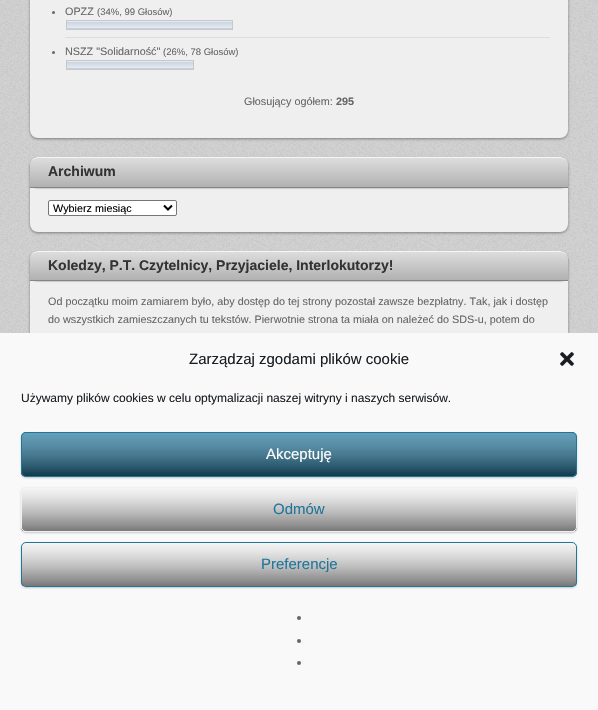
static SkFont makeFont(const char* family, int weight, float size, bool italic = false) {
  SkFontStyle style(weight, SkFontStyle::kNormal_Width,
    italic ? SkFontStyle::kItalic_Slant : SkFontStyle::kUpright_Slant);
  SkFont result(fontMgr->matchFamilyStyle(family, style), size);
  result.setSubpixel(true);
  return result;
}

static void text(SkCanvas* c, const char* s, float x, float y, const SkFont& font, SkColor color) {
  SkPaint ink(SkColor4f::FromColor(color));
  ink.setAntiAlias(true);
  c->drawString(s, x, y, font, ink);
}

static void box(SkCanvas* c, float l, float t, float r, float b, SkColor color) {
  SkPaint ink(SkColor4f::FromColor(color));
  ink.setAntiAlias(true);
  c->drawRect(SkRect::MakeLTRB(l, t, r, b), ink);
}

static void roundBox(SkCanvas* c, float l, float t, float r, float b, float radius, SkColor color) {
  SkPaint ink(SkColor4f::FromColor(color));
  ink.setAntiAlias(true);
  c->drawRoundRect(SkRect::MakeLTRB(l, t, r, b), radius, radius, ink);
}

static void picture(SkCanvas* c, const char* path, float l, float t, float r, float b) {
  auto image = SkImages::DeferredFromEncodedData(SkData::MakeFromFileName(path));
  c->drawImageRect(image, SkRect::MakeLTRB(l, t, r, b), SkSamplingOptions());
}

void draw(SkCanvas* c) {
  SkPaint paint;
  paint.setAntiAlias(true);
  c->clear(0xffffffff);
  picture(c, "img_01.png", 0, 0, 598, 333);
  paint.setColor(0x66000000);
  paint.setMaskFilter(SkMaskFilter::MakeBlur(kNormal_SkBlurStyle, 1.5f));
  c->drawRoundRect(SkRect::MakeLTRB(30, -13, 568, 139), 8, 8, paint);
  paint.setMaskFilter(nullptr);
  roundBox(c, 30, -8, 568, 138, 8, 0xffefefef);
  box(c, 65, 37, 550, 38, 0xffdddddd);
  paint.setColor(0xff666666);
  c->drawCircle(53.5f, 12.5f, 1.5f, paint);
  SkFont face1 = makeFont("Liberation Sans", 400, 10.8f);
  text(c, "OPZZ", 65, 15, face1, 0xff666666);
  SkFont face2 = makeFont("Liberation Sans", 400, 9.5f);
  text(c, "(34%, 99 Głosów)", 97, 15, face2, 0xff666666);
  picture(c, "img_02.png", 67, 21, 232, 29);
  paint.setStyle(SkPaint::kStroke_Style);
  paint.setStrokeWidth(1);
  paint.setColor(0xffc8c8c8);
  c->drawRect(SkRect::MakeLTRB(66.5f, 20.5f, 232.5f, 29.5f), paint);
  paint.setStyle(SkPaint::kFill_Style);
  paint.setColor(0xff666666);
  c->drawCircle(53.5f, 52.5f, 1.5f, paint);
  text(c, "NSZZ \"Solidarność\"", 65, 55, face1, 0xff666666);
  text(c, "(26%, 78 Głosów)", 163, 55, face2, 0xff666666);
  picture(c, "img_03.png", 67, 61, 193, 69);
  paint.setStyle(SkPaint::kStroke_Style);
  paint.setColor(0xffc8c8c8);
  c->drawRect(SkRect::MakeLTRB(66.5f, 60.5f, 193.5f, 69.5f), paint);
  text(c, "Głosujący ogółem:", 244, 105, face1, 0xff666666);
  SkFont face3 = makeFont("Liberation Sans", 700, 10.8f);
  text(c, "295", 336, 105, face3, 0xff666666);
  paint.setStyle(SkPaint::kFill_Style);
  paint.setColor(0x66000000);
  paint.setMaskFilter(SkMaskFilter::MakeBlur(kNormal_SkBlurStyle, 1.5f));
  c->drawRoundRect(SkRect::MakeLTRB(30, 159, 568, 233), 8, 8, paint);
  paint.setMaskFilter(nullptr);
  roundBox(c, 30, 158, 568, 232, 8, 0xffefefef);
  paint.setColor(0x26000000);
  paint.setMaskFilter(SkMaskFilter::MakeBlur(kNormal_SkBlurStyle, 0.5f));
  c->drawRoundRect(SkRect::MakeLTRB(30, 158, 568, 189), 8, 8, paint);
  paint.setMaskFilter(nullptr);
  paint.setColor(0xffa9a9a9);
  c->drawPath(SkPathBuilder().moveTo(38, 157).lineTo(560, 157).cubicTo(564.5f, 157, 568, 160.5f, 568, 165).lineTo(568, 188).lineTo(30, 188).lineTo(30, 165).cubicTo(30, 160.5f, 33.5f, 157, 38, 157).close().detach(), paint);
  c->save();
  c->clipPath(SkPathBuilder().moveTo(38, 157).lineTo(560, 157).cubicTo(564.5f, 157, 568, 160.5f, 568, 165).lineTo(568, 188).lineTo(30, 188).lineTo(30, 165).cubicTo(30, 160.5f, 33.5f, 157, 38, 157).close().detach(), true);
  {
    const SkColor colors[] = {0x99ffffff, 0x1affffff};
    const float stops[] = {0, 1};
    const SkPoint ends[] = {{299, 129}, {299, 158}};
    paint.setShader(SkGradientShader::MakeLinear(ends, colors, stops, 2, SkTileMode::kClamp));
    paint.setAlpha(255);
  }
  c->drawRect(SkRect::MakeLTRB(30, 157, 568, 158), paint);
  {
    const SkColor colors[] = {0x99ffffff, 0x1affffff};
    const float stops[] = {0, 1};
    const SkPoint ends[] = {{299, 158}, {299, 187}};
    paint.setShader(SkGradientShader::MakeLinear(ends, colors, stops, 2, SkTileMode::kClamp));
    paint.setAlpha(255);
  }
  c->drawRect(SkRect::MakeLTRB(30, 158, 568, 187), paint);
  c->restore();
  paint.setShader(nullptr);
  paint.setColor(0xfff5f5f5);
  c->drawPath(SkPathBuilder().moveTo(38, 157).cubicTo(34, 157, 30, 161, 30, 165).cubicTo(30, 161, 34, 158, 38, 158).lineTo(560, 158).cubicTo(564, 158, 568, 161, 568, 165).cubicTo(568, 161, 564, 157, 560, 157).close().detach(), paint);
  box(c, 30, 187, 568, 188, 0xff848484);
  SkFont face4 = makeFont("Liberation Sans", 700, 14);
  text(c, "Archiwum", 48, 176, face4, 0xff333333);
  paint.setColor(0xffffffff);
  c->drawRoundRect(SkRect::MakeLTRB(48.5f, 200.5f, 176.5f, 215.5f), 1.5f, 1.5f, paint);
  paint.setStyle(SkPaint::kStroke_Style);
  paint.setColor(0xff767676);
  c->drawRoundRect(SkRect::MakeLTRB(48.5f, 200.5f, 176.5f, 215.5f), 1.5f, 1.5f, paint);
  paint.setStrokeWidth(2);
  paint.setColor(0xff000000);
  c->drawPath(SkPathBuilder().moveTo(164, 205.5f).lineTo(168, 209.5f).lineTo(172, 205.5f).detach(), paint);
  text(c, "Wybierz miesiąc", 53, 212, face1, 0xff000000);
  paint.setStyle(SkPaint::kFill_Style);
  paint.setColor(0x66000000);
  paint.setMaskFilter(SkMaskFilter::MakeBlur(kNormal_SkBlurStyle, 1.5f));
  c->drawRoundRect(SkRect::MakeLTRB(30, 253, 568, 506), 8, 8, paint);
  paint.setMaskFilter(nullptr);
  roundBox(c, 30, 252, 568, 505, 8, 0xffefefef);
  paint.setColor(0x26000000);
  paint.setMaskFilter(SkMaskFilter::MakeBlur(kNormal_SkBlurStyle, 0.5f));
  c->drawRoundRect(SkRect::MakeLTRB(30, 252, 568, 282), 8, 8, paint);
  paint.setMaskFilter(nullptr);
  paint.setColor(0xffa9a9a9);
  c->drawPath(SkPathBuilder().moveTo(38, 251).lineTo(560, 251).cubicTo(564.5f, 251, 568, 254.5f, 568, 259).lineTo(568, 281).lineTo(30, 281).lineTo(30, 259).cubicTo(30, 254.5f, 33.5f, 251, 38, 251).close().detach(), paint);
  c->save();
  c->clipPath(SkPathBuilder().moveTo(38, 251).lineTo(560, 251).cubicTo(564.5f, 251, 568, 254.5f, 568, 259).lineTo(568, 281).lineTo(30, 281).lineTo(30, 259).cubicTo(30, 254.5f, 33.5f, 251, 38, 251).close().detach(), true);
  {
    const SkColor colors[] = {0x99ffffff, 0x1affffff};
    const float stops[] = {0, 1};
    const SkPoint ends[] = {{299, 224}, {299, 252}};
    paint.setShader(SkGradientShader::MakeLinear(ends, colors, stops, 2, SkTileMode::kClamp));
    paint.setAlpha(255);
  }
  c->drawRect(SkRect::MakeLTRB(30, 251, 568, 252), paint);
  {
    const SkColor colors[] = {0x99ffffff, 0x1affffff};
    const float stops[] = {0, 1};
    const SkPoint ends[] = {{299, 252}, {299, 280}};
    paint.setShader(SkGradientShader::MakeLinear(ends, colors, stops, 2, SkTileMode::kClamp));
    paint.setAlpha(255);
  }
  c->drawRect(SkRect::MakeLTRB(30, 252, 568, 280), paint);
  c->restore();
  paint.setShader(nullptr);
  paint.setColor(0xfff5f5f5);
  c->drawPath(SkPathBuilder().moveTo(38, 251).cubicTo(34, 251, 30, 255, 30, 259).cubicTo(30, 255, 34, 252, 38, 252).lineTo(560, 252).cubicTo(564, 252, 568, 255, 568, 259).cubicTo(568, 255, 564, 251, 560, 251).close().detach(), paint);
  box(c, 30, 280, 568, 281, 0xff848484);
  text(c, "Koledzy, P.T. Czytelnicy, Przyjaciele, Interlokutorzy!", 48, 270, face4, 0xff333333);
  text(c, "Od początku moim zamiarem było, aby dostęp do tej strony pozostał zawsze bezpłatny. Tak, jak i dostęp", 48, 305, face1, 0xff666666);
  text(c, "do wszystkich zamieszczanych tu tekstów. Pierwotnie strona ta miała on należeć do SDS-u, potem do", 48, 323, face1, 0xff666666);
  box(c, 0, 333, 598, 710, 0xfff9f9f9);
  SkFont face5 = makeFont("Liberation Sans", 400, 15);
  text(c, "Zarządzaj zgodami plików cookie", 189, 364, face5, 0xff191e23);
  picture(c, "img_04.png", 560, 352, 574, 366);
  SkFont face6 = makeFont("Liberation Sans", 400, 12);
  text(c, "Używamy plików cookies w celu optymalizacji naszej witryny i naszych serwisów.", 21, 402, face6, 0xff191e23);
  paint.setColor(0x33000000);
  paint.setMaskFilter(SkMaskFilter::MakeBlur(kNormal_SkBlurStyle, 1));
  c->drawRoundRect(SkRect::MakeLTRB(21, 433, 577, 478), 5, 5, paint);
  paint.setMaskFilter(nullptr);
  roundBox(c, 21, 432, 577, 477, 5, 0xff21759b);
  c->save();
  c->clipPath(SkPathBuilder().moveTo(26, 432).lineTo(572, 432).cubicTo(575, 432, 577, 434, 577, 437).lineTo(577, 472).cubicTo(577, 475, 575, 477, 572, 477).lineTo(26, 477).cubicTo(23, 477, 21, 475, 21, 472).lineTo(21, 437).cubicTo(21, 434, 23, 432, 26, 432).close().detach(), true);
  {
    const SkColor colors[] = {0x4dffffff, 0x80000000};
    const float stops[] = {0, 1};
    const SkPoint ends[] = {{299, 433}, {299, 476}};
    paint.setShader(SkGradientShader::MakeLinear(ends, colors, stops, 2, SkTileMode::kClamp));
    paint.setAlpha(255);
  }
  c->drawRect(SkRect::MakeLTRB(21, 433, 577, 476), paint);
  c->restore();
  paint.setStyle(SkPaint::kStroke_Style);
  paint.setStrokeWidth(1);
  paint.setShader(nullptr);
  paint.setColor(0xff21759b);
  c->drawRoundRect(SkRect::MakeLTRB(21.5f, 432.5f, 576.5f, 476.5f), 4.5f, 4.5f, paint);
  text(c, "Akceptuję", 266, 459, face5, 0xffffffff);
  paint.setStyle(SkPaint::kFill_Style);
  paint.setColor(0x33000000);
  paint.setMaskFilter(SkMaskFilter::MakeBlur(kNormal_SkBlurStyle, 1));
  c->drawRoundRect(SkRect::MakeLTRB(21, 488, 577, 533), 5, 5, paint);
  paint.setMaskFilter(nullptr);
  roundBox(c, 21, 487, 577, 532, 5, 0xfff1f1f1);
  c->save();
  c->clipPath(SkPathBuilder().moveTo(26, 487).lineTo(572, 487).cubicTo(575, 487, 577, 489, 577, 492).lineTo(577, 527).cubicTo(577, 530, 575, 532, 572, 532).lineTo(26, 532).cubicTo(23, 532, 21, 530, 21, 527).lineTo(21, 492).cubicTo(21, 489, 23, 487, 26, 487).close().detach(), true);
  {
    const SkColor colors[] = {0x4dffffff, 0x80000000};
    const float stops[] = {0, 1};
    const SkPoint ends[] = {{299, 488}, {299, 531}};
    paint.setShader(SkGradientShader::MakeLinear(ends, colors, stops, 2, SkTileMode::kClamp));
    paint.setAlpha(255);
  }
  c->drawRect(SkRect::MakeLTRB(21, 488, 577, 531), paint);
  c->restore();
  paint.setStyle(SkPaint::kStroke_Style);
  paint.setShader(nullptr);
  paint.setColor(0xfff1f1f1);
  c->drawRoundRect(SkRect::MakeLTRB(21.5f, 487.5f, 576.5f, 531.5f), 4.5f, 4.5f, paint);
  text(c, "Odmów", 273, 514, face5, 0xff21759b);
  paint.setStyle(SkPaint::kFill_Style);
  paint.setColor(0x33000000);
  paint.setMaskFilter(SkMaskFilter::MakeBlur(kNormal_SkBlurStyle, 1));
  c->drawRoundRect(SkRect::MakeLTRB(21, 543, 577, 588), 5, 5, paint);
  paint.setMaskFilter(nullptr);
  roundBox(c, 21, 542, 577, 587, 5, 0xfff1f1f1);
  c->save();
  c->clipPath(SkPathBuilder().moveTo(26, 542).lineTo(572, 542).cubicTo(575, 542, 577, 544, 577, 547).lineTo(577, 582).cubicTo(577, 585, 575, 587, 572, 587).lineTo(26, 587).cubicTo(23, 587, 21, 585, 21, 582).lineTo(21, 547).cubicTo(21, 544, 23, 542, 26, 542).close().detach(), true);
  {
    const SkColor colors[] = {0x4dffffff, 0x80000000};
    const float stops[] = {0, 1};
    const SkPoint ends[] = {{299, 543}, {299, 586}};
    paint.setShader(SkGradientShader::MakeLinear(ends, colors, stops, 2, SkTileMode::kClamp));
    paint.setAlpha(255);
  }
  c->drawRect(SkRect::MakeLTRB(21, 543, 577, 586), paint);
  c->restore();
  paint.setStyle(SkPaint::kStroke_Style);
  paint.setShader(nullptr);
  paint.setColor(0xff21759b);
  c->drawRoundRect(SkRect::MakeLTRB(21.5f, 542.5f, 576.5f, 586.5f), 4.5f, 4.5f, paint);
  text(c, "Preferencje", 261, 569, face5, 0xff21759b);
  paint.setStyle(SkPaint::kFill_Style);
  paint.setColor(0xff666666);
  c->drawCircle(299, 618, 2, paint);
  c->drawCircle(299, 641, 2, paint);
  c->drawCircle(299, 663, 2, paint);
}
